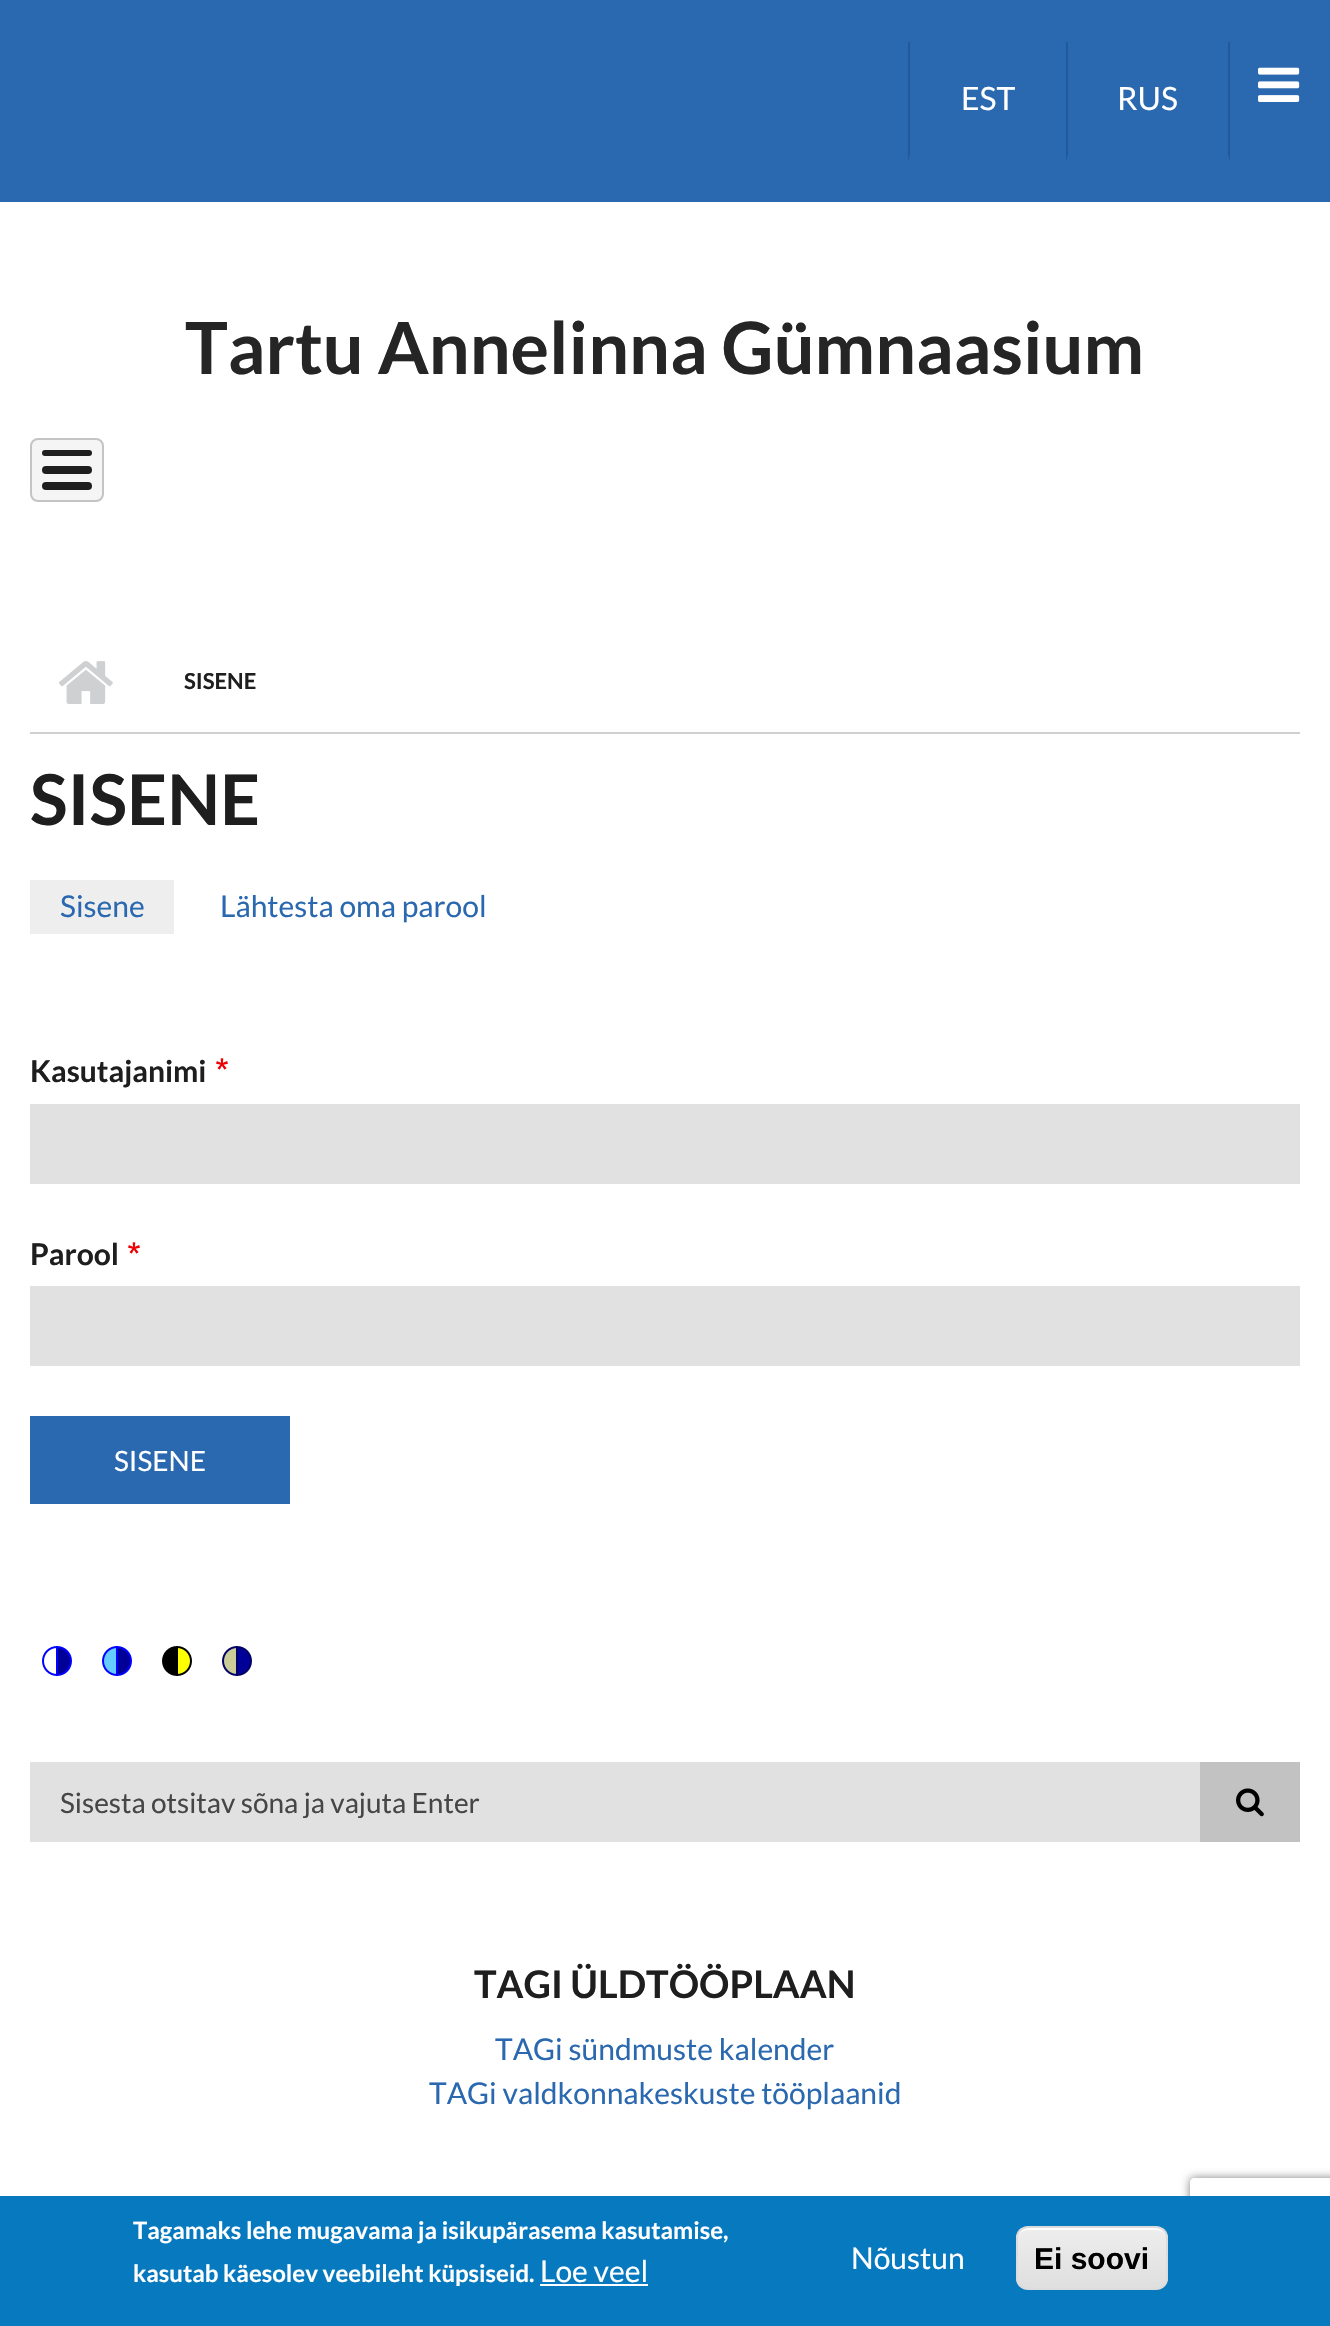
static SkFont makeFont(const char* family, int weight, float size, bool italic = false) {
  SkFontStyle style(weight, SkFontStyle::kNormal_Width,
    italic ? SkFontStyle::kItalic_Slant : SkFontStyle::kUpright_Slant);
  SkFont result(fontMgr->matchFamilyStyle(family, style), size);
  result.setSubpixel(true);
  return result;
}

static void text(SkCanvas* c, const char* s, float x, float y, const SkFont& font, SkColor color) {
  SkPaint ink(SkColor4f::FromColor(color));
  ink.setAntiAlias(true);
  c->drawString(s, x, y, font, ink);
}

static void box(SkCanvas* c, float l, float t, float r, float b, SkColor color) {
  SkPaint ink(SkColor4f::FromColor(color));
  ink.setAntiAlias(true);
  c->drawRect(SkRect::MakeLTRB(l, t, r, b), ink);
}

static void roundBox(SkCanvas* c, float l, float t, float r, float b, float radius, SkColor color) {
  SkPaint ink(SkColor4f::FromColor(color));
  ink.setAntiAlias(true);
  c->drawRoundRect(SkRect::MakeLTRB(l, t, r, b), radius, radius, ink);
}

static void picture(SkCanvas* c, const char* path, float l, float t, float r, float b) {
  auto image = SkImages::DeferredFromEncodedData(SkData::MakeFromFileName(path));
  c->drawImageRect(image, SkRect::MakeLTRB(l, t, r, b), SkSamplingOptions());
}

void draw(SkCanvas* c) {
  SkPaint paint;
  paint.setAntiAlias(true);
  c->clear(0xffffffff);
  box(c, 0, 0, 1330, 202, 0xff2a68af);
  paint.setColor(0xff215999);
  c->drawPath(SkPathBuilder().moveTo(908, 162).lineTo(908, 42).lineTo(910, 42).lineTo(910, 154).close().detach(), paint);
  SkFont face1 = makeFont("Lato", 400, 32);
  text(c, "EST", 961, 110, face1, 0xffffffff);
  c->drawPath(SkPathBuilder().moveTo(1230, 42).lineTo(1230, 162).lineTo(1228, 154).lineTo(1228, 42).close().detach(), paint);
  c->drawPath(SkPathBuilder().moveTo(1066, 162).lineTo(1066, 42).lineTo(1068, 42).lineTo(1068, 154).close().detach(), paint);
  text(c, "RUS", 1117, 110, face1, 0xffffffff);
  picture(c, "img_01.png", 1258, 67, 1300, 102);
  SkFont face2 = makeFont("Lato", 700, 72);
  text(c, "Tartu Annelinna Gümnaasium", 185, 374, face2, 0xff252525);
  roundBox(c, 30, 438, 104, 502, 8, 0xfff5f5f5);
  paint.setStyle(SkPaint::kStroke_Style);
  paint.setStrokeWidth(2);
  paint.setColor(0x33000000);
  c->drawRoundRect(SkRect::MakeLTRB(31, 439, 103, 501), 7, 7, paint);
  roundBox(c, 42, 450, 92, 456, 3, 0xff1e1e1e);
  roundBox(c, 42, 466, 92, 474, 4, 0xff1e1e1e);
  roundBox(c, 42, 482, 92, 490, 4, 0xff1e1e1e);
  box(c, 30, 732, 1300, 734, 0xffcfd0d2);
  picture(c, "img_02.png", 59, 661, 113, 704);
  SkFont face3 = makeFont("Lato", 700, 22);
  text(c, "SISENE", 184, 689, face3, 0xff1e1e1e);
  SkFont face4 = makeFont("Lato", 700, 70);
  text(c, "SISENE", 30, 825, face4, 0xff1e1e1e);
  box(c, 30, 880, 174, 934, 0xffeeeeee);
  SkFont face5 = makeFont("Lato", 400, 30);
  text(c, "Sisene", 60, 917, face5, 0xff2a68af);
  text(c, "Lähtesta oma parool", 220, 917, face5, 0xff2a68af);
  SkFont face6 = makeFont("Lato", 700, 30);
  text(c, "Kasutajanimi", 30, 1082, face6, 0xff1e1e1e);
  picture(c, "img_03.png", 216, 1058, 228, 1070);
  box(c, 30, 1104, 1300, 1184, 0xffe1e1e1);
  text(c, "Parool", 30, 1265, face6, 0xff1e1e1e);
  picture(c, "img_03.png", 128, 1242, 140, 1254);
  box(c, 30, 1286, 1300, 1366, 0xffe1e1e1);
  box(c, 30, 1416, 290, 1504, 0xff2a68af);
  SkFont face7 = makeFont("Lato", 400, 28);
  text(c, "SISENE", 114, 1471, face7, 0xffffffff);
  picture(c, "img_04.png", 42, 1646, 72, 1676);
  picture(c, "img_05.png", 102, 1646, 132, 1676);
  picture(c, "img_06.png", 162, 1646, 192, 1676);
  picture(c, "img_07.png", 222, 1646, 252, 1676);
  box(c, 30, 1762, 1200, 1842, 0xffe1e1e1);
  text(c, "Sisesta otsitav sõna ja vajuta Enter", 60, 1813, face7, 0xff464646);
  box(c, 1200, 1762, 1300, 1842, 0xffc2c2c2);
  picture(c, "img_08.png", 1236, 1788, 1264, 1817);
  SkFont face8 = makeFont("Lato", 700, 38);
  text(c, "TAGI ÜLDTÖÖPLAAN", 474, 1998, face8, 0xff1e1e1e);
  text(c, "TAGi sündmuste kalender", 495, 2060, face5, 0xff2a68af);
  text(c, "TAGi valdkonnakeskuste tööplaanid", 429, 2104, face5, 0xff2a68af);
  c->save();
  c->clipPath(SkPathBuilder(SkPathFillType::kEvenOdd).moveTo(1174, 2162).lineTo(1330, 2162).lineTo(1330, 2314).lineTo(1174, 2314).close().moveTo(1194, 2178).lineTo(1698, 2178).cubicTo(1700, 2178, 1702, 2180, 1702, 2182).lineTo(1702, 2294).cubicTo(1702, 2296, 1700, 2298, 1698, 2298).lineTo(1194, 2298).cubicTo(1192, 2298, 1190, 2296, 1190, 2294).lineTo(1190, 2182).cubicTo(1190, 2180, 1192, 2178, 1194, 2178).close().detach(), true);
  paint.setStyle(SkPaint::kFill_Style);
  paint.setColor(0xff808080);
  paint.setMaskFilter(SkMaskFilter::MakeBlur(kNormal_SkBlurStyle, 5));
  c->drawRoundRect(SkRect::MakeLTRB(1190, 2178, 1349, 2298), 4, 4, paint);
  paint.setMaskFilter(nullptr);
  c->restore();
  box(c, 0, 2196, 1330, 2326, 0xff0779bf);
  SkFont face9 = makeFont("Lato", 700, 24);
  text(c, "Tagamaks lehe mugavama ja isikupärasema kasutamise,", 133, 2239, face9, 0xffffffff);
  text(c, "kasutab käesolev veebileht küpsiseid.", 133, 2282, face9, 0xffffffff);
  text(c, "Loe veel", 540, 2282, face5, 0xffffffff);
  box(c, 540, 2284, 648, 2286, 0xffffffff);
  text(c, "Nõustun", 851, 2269, face5, 0xffffffff);
  c->save();
  c->clipPath(SkPathBuilder().moveTo(1028, 2226).lineTo(1156, 2226).cubicTo(1162.5f, 2226, 1168, 2231.5f, 1168, 2238).lineTo(1168, 2278).cubicTo(1168, 2284.5f, 1162.5f, 2290, 1156, 2290).lineTo(1028, 2290).cubicTo(1021.5f, 2290, 1016, 2284.5f, 1016, 2278).lineTo(1016, 2238).cubicTo(1016, 2231.5f, 1021.5f, 2226, 1028, 2226).close().detach(), true);
  {
    const SkColor colors[] = {0xffededed, 0xffdfdfdf};
    const float stops[] = {0.05f, 1};
    const SkPoint ends[] = {{1092, 2228}, {1092, 2288}};
    paint.setShader(SkGradientShader::MakeLinear(ends, colors, stops, 2, SkTileMode::kClamp));
    paint.setAlpha(255);
  }
  c->drawRect(SkRect::MakeLTRB(1016, 2228, 1168, 2288), paint);
  c->restore();
  paint.setShader(nullptr);
  paint.setColor(0xffffffff);
  c->drawPath(SkPathBuilder().moveTo(1028, 2230).lineTo(1156, 2230).cubicTo(1162, 2230, 1166, 2234, 1166, 2240).cubicTo(1166, 2223, 1147, 2228, 1135, 2228).lineTo(1049, 2228).cubicTo(1037, 2228, 1018, 2223, 1018, 2240).cubicTo(1018, 2234, 1022, 2230, 1028, 2230).close().detach(), paint);
  paint.setStyle(SkPaint::kStroke_Style);
  paint.setColor(0xffdcdcdc);
  c->drawRoundRect(SkRect::MakeLTRB(1017, 2227, 1167, 2289), 11, 11, paint);
  SkFont face10 = makeFont("Liberation Sans", 700, 30);
  text(c, "Ei soovi", 1034, 2269, face10, 0xff000000);
}
